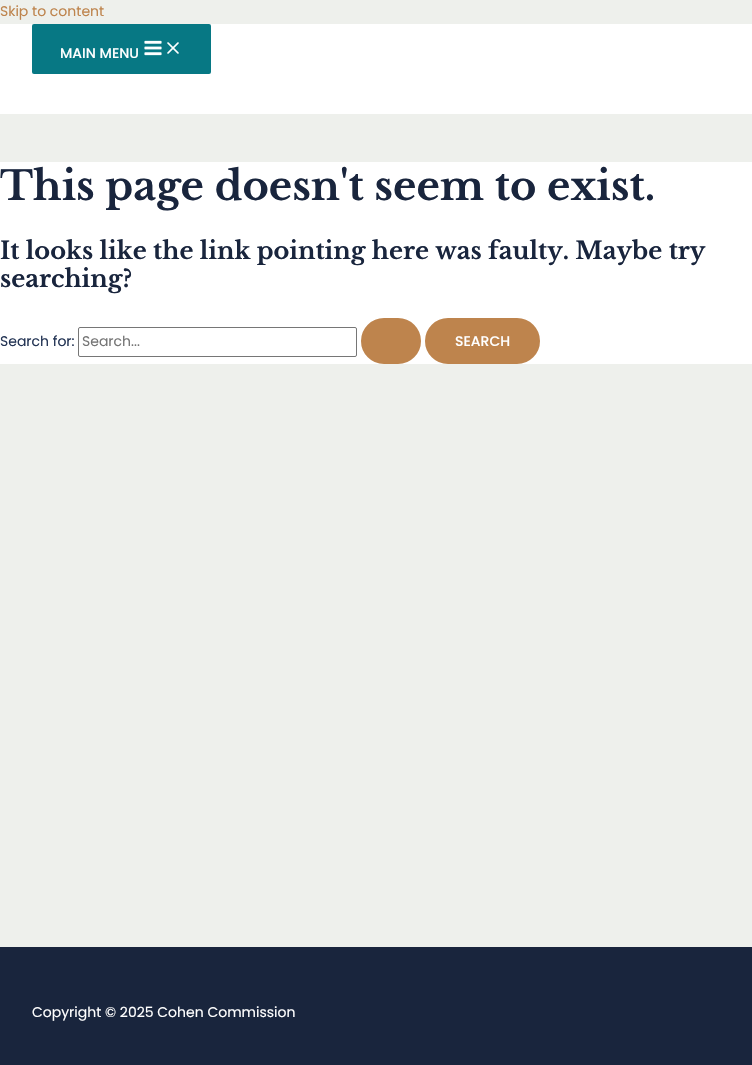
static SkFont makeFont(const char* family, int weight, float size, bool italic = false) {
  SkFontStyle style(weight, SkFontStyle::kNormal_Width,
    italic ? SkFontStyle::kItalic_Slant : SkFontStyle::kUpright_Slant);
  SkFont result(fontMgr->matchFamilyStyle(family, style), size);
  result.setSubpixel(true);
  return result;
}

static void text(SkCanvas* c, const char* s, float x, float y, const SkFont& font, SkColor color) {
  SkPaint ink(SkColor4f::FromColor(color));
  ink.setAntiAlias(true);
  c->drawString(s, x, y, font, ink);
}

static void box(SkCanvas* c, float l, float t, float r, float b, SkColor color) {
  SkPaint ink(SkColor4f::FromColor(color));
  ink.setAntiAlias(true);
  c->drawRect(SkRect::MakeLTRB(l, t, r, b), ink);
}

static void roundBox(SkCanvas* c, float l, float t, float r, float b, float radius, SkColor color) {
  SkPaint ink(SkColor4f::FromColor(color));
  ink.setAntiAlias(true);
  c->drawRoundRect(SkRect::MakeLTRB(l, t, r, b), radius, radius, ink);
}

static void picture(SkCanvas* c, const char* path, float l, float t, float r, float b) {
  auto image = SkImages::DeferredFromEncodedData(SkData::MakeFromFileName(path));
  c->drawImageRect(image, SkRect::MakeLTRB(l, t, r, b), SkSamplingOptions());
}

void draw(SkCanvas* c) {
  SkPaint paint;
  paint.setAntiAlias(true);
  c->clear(0xffeef0ec);
  SkFont face1 = makeFont("Poppins", 400, 14);
  text(c, "Skip to content", 0, 16, face1, 0xffbe844d);
  box(c, 0, 24, 752, 114, 0xffffffff);
  roundBox(c, 32, 24, 211, 74, 2, 0xff077884);
  SkFont face2 = makeFont("Poppins", 500, 14);
  text(c, "MAIN MENU", 60, 58, face2, 0xffffffff);
  picture(c, "img_01.png", 144, 40, 162, 56);
  picture(c, "img_02.png", 167, 42, 179, 54);
  box(c, 0, 162, 752, 364, 0xffffffff);
  SkFont face3 = makeFont("Libre Baskerville", 700, 40);
  text(c, "This page doesn't seem to exist.", 0, 200, face3, 0xff19253d);
  SkFont face4 = makeFont("Libre Baskerville", 700, 24);
  text(c, "It looks like the link pointing here was faulty. Maybe try", 0, 259, face4, 0xff19253d);
  text(c, "searching?", 0, 287, face4, 0xff19253d);
  text(c, "Search for:", 0, 346, face1, 0xff233454);
  paint.setStyle(SkPaint::kStroke_Style);
  paint.setStrokeWidth(1);
  paint.setColor(0xff767676);
  c->drawRoundRect(SkRect::MakeLTRB(78.5f, 327.5f, 356.5f, 356.5f), 1.5f, 1.5f, paint);
  text(c, "Search...", 82, 346, face1, 0xff757575);
  paint.setStyle(SkPaint::kFill_Style);
  paint.setColor(0xffbe844d);
  c->drawRoundRect(SkRect::MakeLTRB(362, 319, 420, 363), 22, 22, paint);
  paint.setStyle(SkPaint::kStroke_Style);
  paint.setStrokeWidth(2);
  c->drawRoundRect(SkRect::MakeLTRB(362, 319, 420, 363), 22, 22, paint);
  paint.setStyle(SkPaint::kFill_Style);
  c->drawRoundRect(SkRect::MakeLTRB(426, 319, 539, 363), 22, 22, paint);
  paint.setStyle(SkPaint::kStroke_Style);
  c->drawRoundRect(SkRect::MakeLTRB(426, 319, 539, 363), 22, 22, paint);
  text(c, "SEARCH", 455, 346, face2, 0xffffffff);
  box(c, 0, 947, 752, 1065, 0xff19253d);
  text(c, "Copyright © 2025 Cohen Commission", 32, 1017, face1, 0xffffffff);
}
